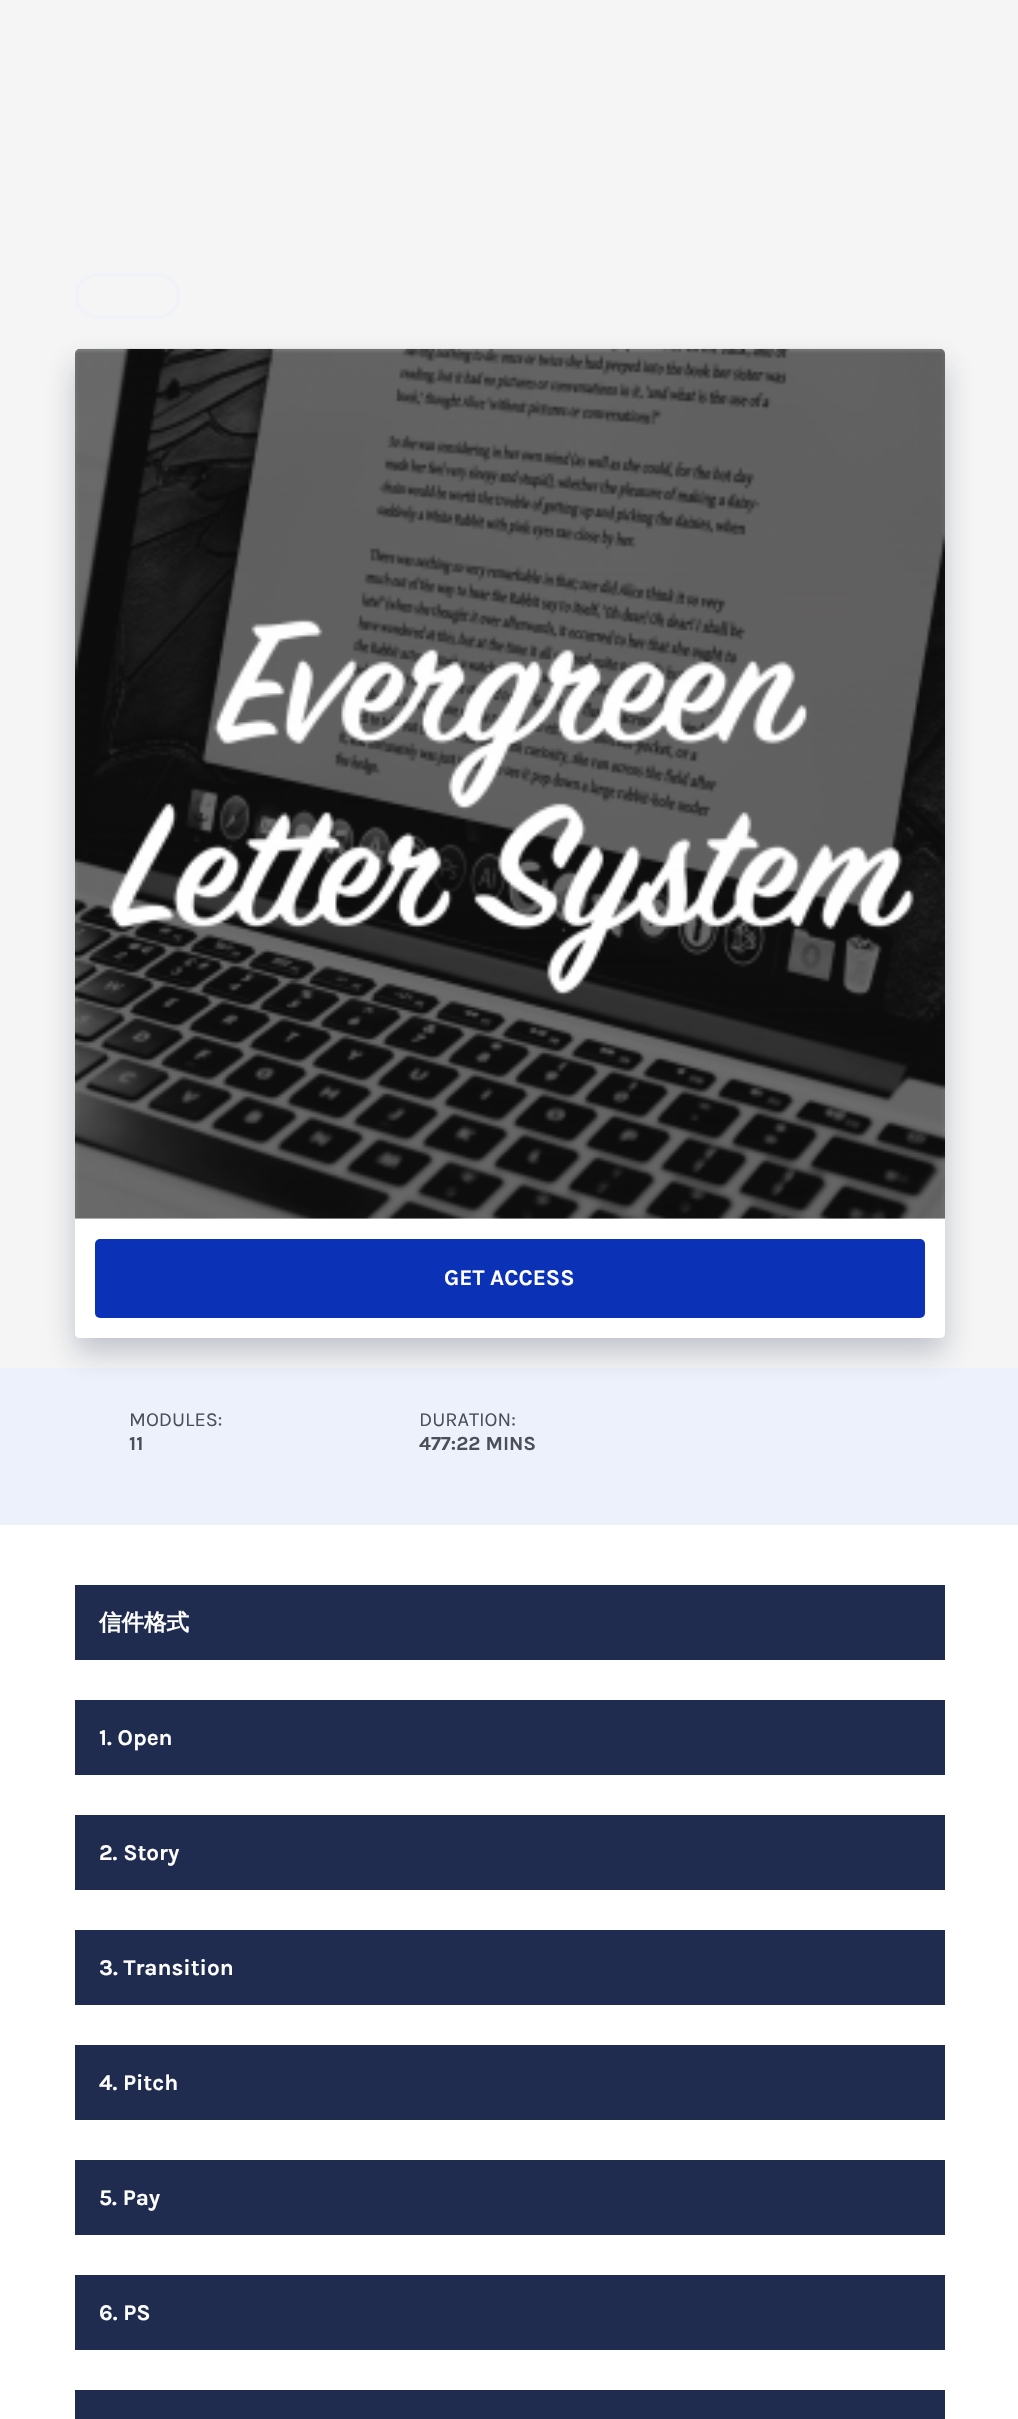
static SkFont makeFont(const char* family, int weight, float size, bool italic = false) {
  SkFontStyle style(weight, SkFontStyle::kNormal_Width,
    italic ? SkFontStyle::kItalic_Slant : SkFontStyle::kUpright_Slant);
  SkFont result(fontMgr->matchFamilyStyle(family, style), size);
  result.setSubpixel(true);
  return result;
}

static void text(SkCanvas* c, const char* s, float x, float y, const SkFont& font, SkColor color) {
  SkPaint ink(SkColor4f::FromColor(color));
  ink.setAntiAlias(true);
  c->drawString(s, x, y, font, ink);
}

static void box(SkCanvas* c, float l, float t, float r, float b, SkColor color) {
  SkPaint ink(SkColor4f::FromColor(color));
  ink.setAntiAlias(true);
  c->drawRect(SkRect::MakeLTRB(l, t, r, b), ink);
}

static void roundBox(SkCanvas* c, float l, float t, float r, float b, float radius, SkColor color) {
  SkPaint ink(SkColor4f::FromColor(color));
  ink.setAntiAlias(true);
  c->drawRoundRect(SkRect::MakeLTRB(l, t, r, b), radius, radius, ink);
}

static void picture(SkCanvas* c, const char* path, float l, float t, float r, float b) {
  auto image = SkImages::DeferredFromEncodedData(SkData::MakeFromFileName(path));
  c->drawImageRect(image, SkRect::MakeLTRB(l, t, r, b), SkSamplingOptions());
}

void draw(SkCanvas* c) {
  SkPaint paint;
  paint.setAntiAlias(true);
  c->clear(0xfff5f5f5);
  paint.setStyle(SkPaint::kStroke_Style);
  paint.setStrokeWidth(3);
  paint.setColor(0xffeff2f9);
  c->drawRoundRect(SkRect::MakeLTRB(76.5f, 274.5f, 178.5f, 317.5f), 21.5f, 21.5f, paint);
  box(c, 0, 1368, 1018, 1525, 0xffecf1fb);
  paint.setStyle(SkPaint::kFill_Style);
  paint.setColor(0x401f2c4f);
  paint.setMaskFilter(SkMaskFilter::MakeBlur(kNormal_SkBlurStyle, 15));
  c->drawRoundRect(SkRect::MakeLTRB(75, 364, 945, 1353), 5, 5, paint);
  paint.setMaskFilter(nullptr);
  roundBox(c, 75, 349, 945, 1338, 5, 0xffffffff);
  picture(c, "img_01.png", 75, 348, 945, 1219);
  paint.setColor(0xffffffff);
  c->drawPath(SkPathBuilder().moveTo(75, 1219).lineTo(945, 1219).lineTo(945, 1333).cubicTo(945, 1336, 943, 1338, 940, 1338).lineTo(80, 1338).cubicTo(77, 1338, 75, 1336, 75, 1333).close().detach(), paint);
  roundBox(c, 95, 1239, 925, 1318, 5, 0xff0b31b6);
  SkFont face1 = makeFont("Karla", 700, 22.5f);
  text(c, "GET ACCESS", 444, 1285, face1, 0xffffffff);
  SkFont face2 = makeFont("Karla", 400, 20);
  text(c, "MODULES:", 129, 1426, face2, 0xff4b4f58);
  SkFont face3 = makeFont("Karla", 700, 20);
  text(c, "11", 129, 1450, face3, 0xff4b4f58);
  text(c, "DURATION:", 419, 1426, face2, 0xff4b4f58);
  text(c, "477:22 MINS", 419, 1450, face3, 0xff4b4f58);
  box(c, 0, 1525, 1018, 2419, 0xffffffff);
  box(c, 75, 1585, 945, 1660, 0xff1f2c4f);
  SkFont face4 = makeFont("WenQuanYi Zen Hei", 700, 22.5f);
  text(c, "信件格式", 99, 1630, face4, 0xffffffff);
  box(c, 75, 1700, 945, 1775, 0xff1f2c4f);
  text(c, "1. Open", 99, 1745, face1, 0xffffffff);
  box(c, 75, 1815, 945, 1890, 0xff1f2c4f);
  text(c, "2. Story", 99, 1860, face1, 0xffffffff);
  box(c, 75, 1930, 945, 2005, 0xff1f2c4f);
  text(c, "3. Transition", 99, 1975, face1, 0xffffffff);
  box(c, 75, 2045, 945, 2120, 0xff1f2c4f);
  text(c, "4. Pitch", 99, 2090, face1, 0xffffffff);
  box(c, 75, 2160, 945, 2235, 0xff1f2c4f);
  text(c, "5. Pay", 99, 2205, face1, 0xffffffff);
  box(c, 75, 2275, 945, 2350, 0xff1f2c4f);
  text(c, "6. PS", 99, 2320, face1, 0xffffffff);
  box(c, 75, 2390, 945, 2419, 0xff1f2c4f);
}
